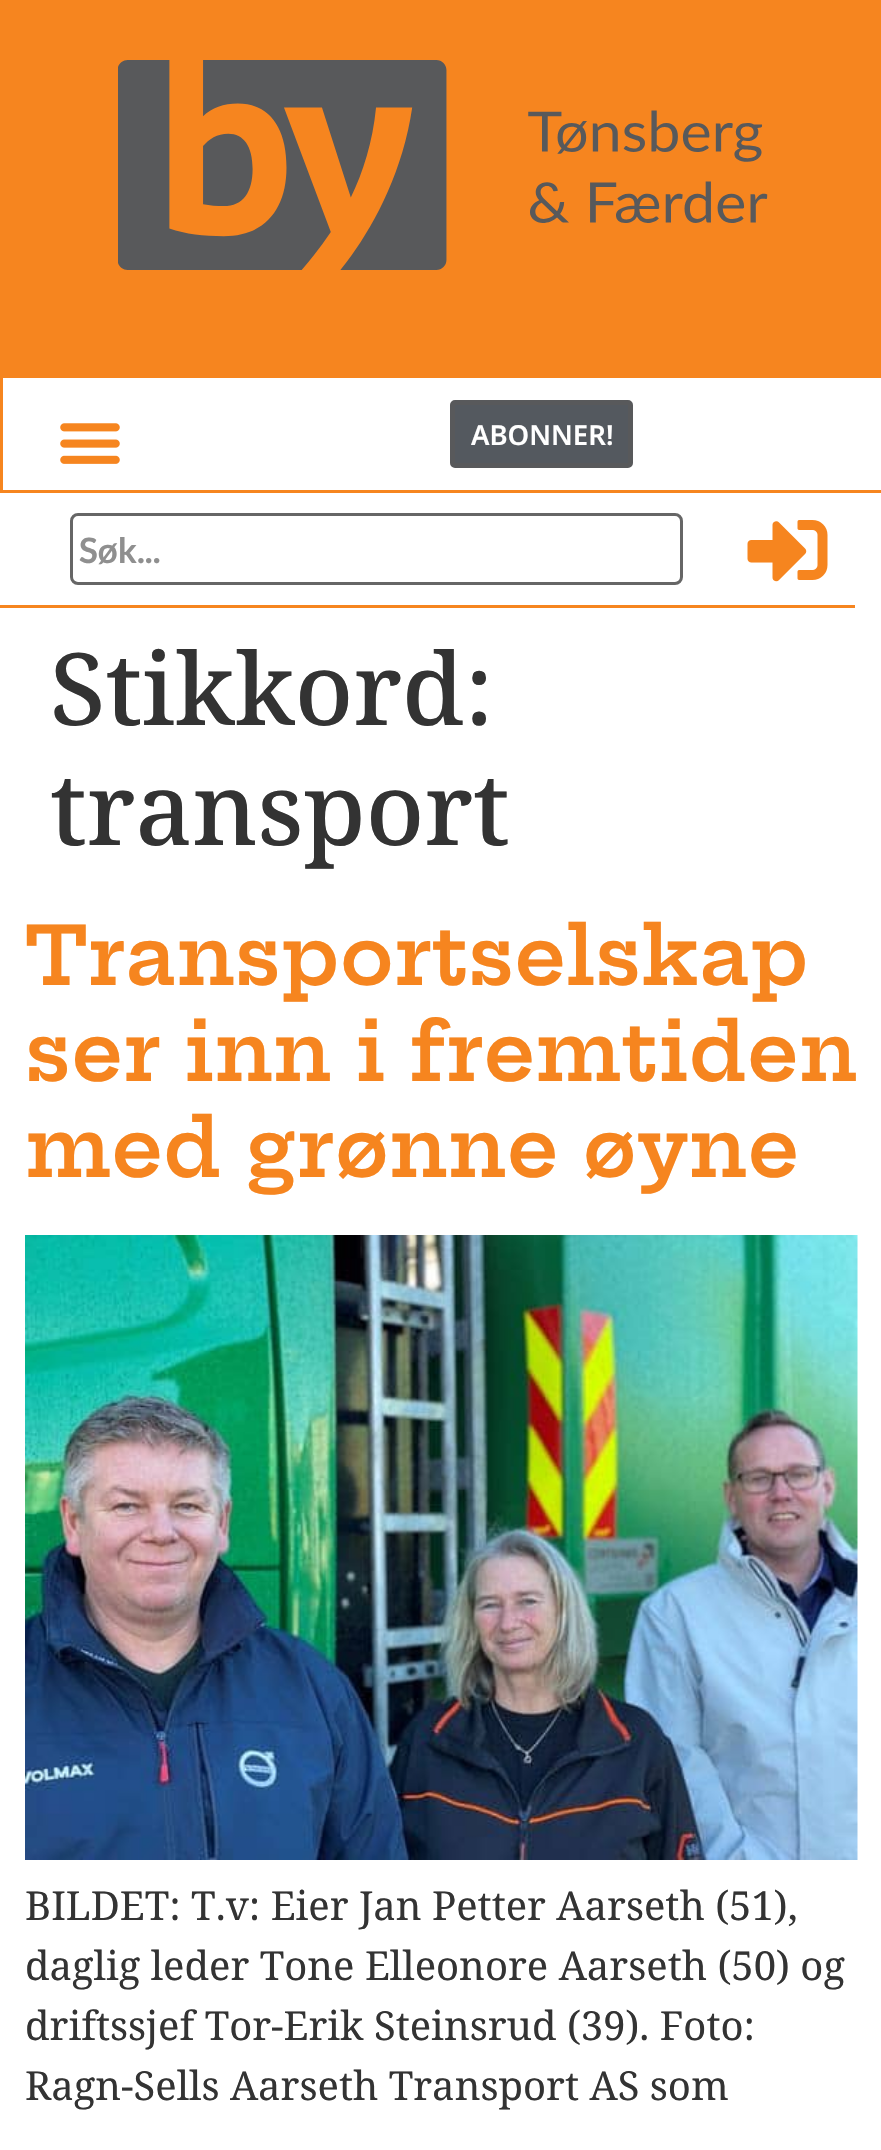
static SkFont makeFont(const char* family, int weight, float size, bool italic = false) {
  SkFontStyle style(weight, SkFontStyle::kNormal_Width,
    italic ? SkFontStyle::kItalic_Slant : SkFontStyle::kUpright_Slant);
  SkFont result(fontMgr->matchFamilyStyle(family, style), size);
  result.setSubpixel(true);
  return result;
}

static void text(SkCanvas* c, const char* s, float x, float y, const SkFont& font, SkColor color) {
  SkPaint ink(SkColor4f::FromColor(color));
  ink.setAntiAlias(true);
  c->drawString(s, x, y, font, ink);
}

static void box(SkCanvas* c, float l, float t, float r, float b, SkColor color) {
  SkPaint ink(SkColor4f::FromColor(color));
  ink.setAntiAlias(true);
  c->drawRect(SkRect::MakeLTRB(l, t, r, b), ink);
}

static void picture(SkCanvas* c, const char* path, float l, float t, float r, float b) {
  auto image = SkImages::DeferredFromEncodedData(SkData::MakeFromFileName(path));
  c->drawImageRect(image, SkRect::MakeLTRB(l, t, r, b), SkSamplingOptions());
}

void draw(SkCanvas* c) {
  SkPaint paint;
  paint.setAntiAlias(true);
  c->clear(0xffffffff);
  box(c, 0, 0, 881, 375, 0xfff6851f);
  picture(c, "img_01.png", 118, 60, 768, 270);
  box(c, 0, 375, 881, 378, 0xfff6851f);
  box(c, 0, 490, 881, 493, 0xfff6851f);
  box(c, 0, 375, 3, 493, 0xfff6851f);
  picture(c, "img_02.png", 60, 423, 120, 464);
  paint.setColor(0xff54595f);
  c->drawRoundRect(SkRect::MakeLTRB(452.5f, 402.5f, 630.5f, 465.5f), 2.5f, 2.5f, paint);
  paint.setStyle(SkPaint::kStroke_Style);
  paint.setStrokeWidth(5);
  paint.setColor(0xff58595b);
  c->drawRoundRect(SkRect::MakeLTRB(452.5f, 402.5f, 630.5f, 465.5f), 2.5f, 2.5f, paint);
  SkFont face1 = makeFont("Noto Sans", 600, 27.5f);
  text(c, "ABONNER!", 471, 445, face1, 0xffffffff);
  paint.setStrokeWidth(3);
  paint.setColor(0xff666666);
  c->drawRoundRect(SkRect::MakeLTRB(71.5f, 514.5f, 681.5f, 583.5f), 6.5f, 6.5f, paint);
  SkFont face2 = makeFont("Lato", 700, 35);
  text(c, "Søk...", 79, 563, face2, 0xff8f8f8f);
  picture(c, "img_03.png", 747, 520, 828, 582);
  box(c, 0, 605, 855, 608, 0xfff6851f);
  SkFont face3 = makeFont("Noto Serif", 500, 100);
  text(c, "Stikkord:", 50, 725, face3, 0xff333333);
  text(c, "transport", 50, 845, face3, 0xff333333);
  SkFont face4 = makeFont("Hepta Slab", 600, 80);
  text(c, "Transportselskap", 25, 985, face4, 0xfff6851f);
  text(c, "ser inn i fremtiden", 25, 1081, face4, 0xfff6851f);
  text(c, "med grønne øyne", 25, 1177, face4, 0xfff6851f);
  picture(c, "img_04.png", 25, 1235, 858, 1860);
  SkFont face5 = makeFont("Noto Serif", 400, 40);
  text(c, "BILDET: T.v: Eier Jan Petter Aarseth (51),", 25, 1920, face5, 0xff333333);
  text(c, "daglig leder Tone Elleonore Aarseth (50) og", 25, 1980, face5, 0xff333333);
  text(c, "driftssjef Tor-Erik Steinsrud (39). Foto:", 25, 2040, face5, 0xff333333);
  text(c, "Ragn-Sells Aarseth Transport AS som", 25, 2100, face5, 0xff333333);
}
